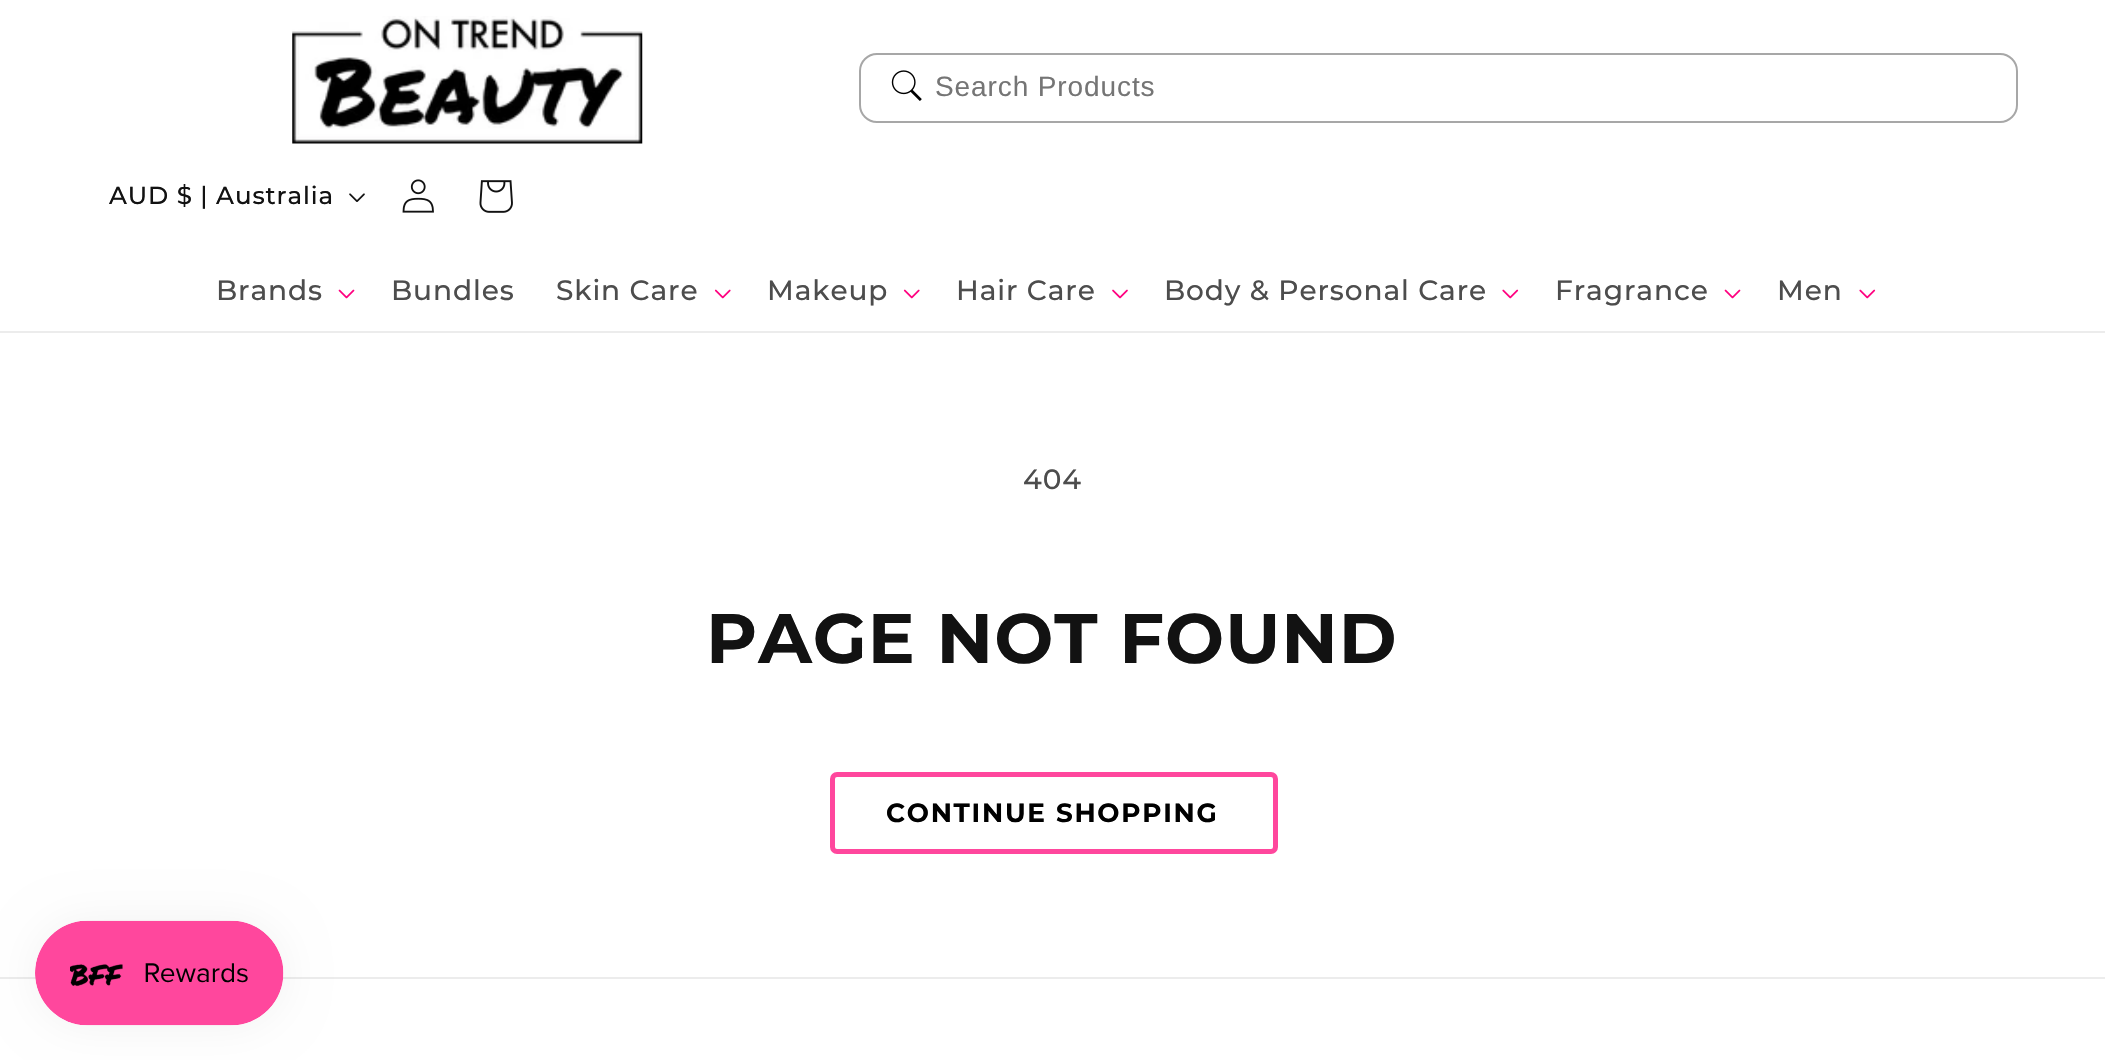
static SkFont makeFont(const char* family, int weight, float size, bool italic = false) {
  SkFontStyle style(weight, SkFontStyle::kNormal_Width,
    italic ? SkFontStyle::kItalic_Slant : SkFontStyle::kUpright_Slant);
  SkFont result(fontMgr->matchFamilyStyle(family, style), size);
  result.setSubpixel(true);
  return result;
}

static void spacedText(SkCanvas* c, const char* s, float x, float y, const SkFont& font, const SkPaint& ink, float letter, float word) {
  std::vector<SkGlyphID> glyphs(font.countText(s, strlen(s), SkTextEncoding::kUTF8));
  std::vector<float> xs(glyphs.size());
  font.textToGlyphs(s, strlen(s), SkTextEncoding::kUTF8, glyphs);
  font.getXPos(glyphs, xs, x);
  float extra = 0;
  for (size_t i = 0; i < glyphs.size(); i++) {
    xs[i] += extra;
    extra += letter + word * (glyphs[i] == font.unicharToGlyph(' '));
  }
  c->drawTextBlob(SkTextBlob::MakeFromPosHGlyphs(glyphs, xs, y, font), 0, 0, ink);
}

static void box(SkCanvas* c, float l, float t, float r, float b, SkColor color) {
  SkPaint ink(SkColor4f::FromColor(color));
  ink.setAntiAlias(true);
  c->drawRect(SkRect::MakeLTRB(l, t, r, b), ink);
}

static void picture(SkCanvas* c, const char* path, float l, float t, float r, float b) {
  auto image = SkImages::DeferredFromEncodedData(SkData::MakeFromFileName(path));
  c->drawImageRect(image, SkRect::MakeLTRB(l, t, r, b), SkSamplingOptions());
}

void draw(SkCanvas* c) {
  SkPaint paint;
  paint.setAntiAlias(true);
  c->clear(0xffffffff);
  box(c, 0, 331, 2105, 333, 0xffececec);
  picture(c, "img_01.png", 292, 16, 643, 144);
  paint.setStyle(SkPaint::kStroke_Style);
  paint.setStrokeWidth(2);
  paint.setColor(0xffa7a7a7);
  c->drawRoundRect(SkRect::MakeLTRB(860, 54, 2017, 122), 17, 17, paint);
  picture(c, "img_02.png", 891, 70, 922, 101);
  SkFont face1 = makeFont("Liberation Sans", 400, 28);
  paint.setStyle(SkPaint::kFill_Style);
  paint.setColor(0xff757575);
  spacedText(c, "Search Products", 935, 96, face1, paint, 0.9f, 0);
  SkFont face2 = makeFont("Montserrat", 500, 24.5f);
  paint.setColor(0xff121212);
  spacedText(c, "AUD $ | Australia", 109, 204, face2, paint, 0.9f, 0);
  picture(c, "img_03.png", 349, 193, 365, 202);
  picture(c, "img_04.png", 402, 179, 434, 213);
  picture(c, "img_05.png", 479, 180, 513, 213);
  SkFont face3 = makeFont("Montserrat", 500, 28);
  paint.setColor(0xff4d4d4d);
  spacedText(c, "Brands", 216, 300, face3, paint, 0.9f, 0);
  picture(c, "img_06.png", 338, 289, 355, 299);
  spacedText(c, "Bundles", 391, 300, face3, paint, 0.9f, 0);
  spacedText(c, "Skin Care", 556, 300, face3, paint, 0.9f, 0);
  picture(c, "img_07.png", 714, 289, 731, 299);
  spacedText(c, "Makeup", 767, 300, face3, paint, 0.9f, 0);
  picture(c, "img_07.png", 903, 289, 920, 299);
  spacedText(c, "Hair Care", 956, 300, face3, paint, 0.9f, 0);
  picture(c, "img_08.png", 1112, 289, 1128, 299);
  spacedText(c, "Body & Personal Care", 1164, 300, face3, paint, 0.9f, 0);
  picture(c, "img_09.png", 1502, 289, 1519, 299);
  spacedText(c, "Fragrance", 1555, 300, face3, paint, 0.9f, 0);
  picture(c, "img_06.png", 1724, 289, 1741, 299);
  spacedText(c, "Men", 1777, 300, face3, paint, 0.9f, 0);
  picture(c, "img_09.png", 1859, 289, 1876, 299);
  spacedText(c, "404", 1023, 489, face3, paint, 0.9f, 0);
  SkFont face4 = makeFont("Montserrat", 700, 70);
  paint.setColor(0xff121212);
  spacedText(c, "PAGE NOT FOUND", 706, 663, face4, paint, 1, 0);
  paint.setStyle(SkPaint::kStroke_Style);
  paint.setStrokeWidth(5);
  paint.setColor(0xffff479d);
  c->drawRoundRect(SkRect::MakeLTRB(832.5f, 774.5f, 1275.5f, 851.5f), 4.5f, 4.5f, paint);
  SkFont face5 = makeFont("Montserrat", 700, 26.25f);
  paint.setStyle(SkPaint::kFill_Style);
  paint.setColor(0xff000000);
  spacedText(c, "CONTINUE SHOPPING", 886, 822, face5, paint, 1.75f, 0);
  box(c, 0, 977, 2105, 979, 0xffececec);
  paint.setColor(0x0d000000);
  paint.setMaskFilter(SkMaskFilter::MakeBlur(kNormal_SkBlurStyle, 22));
  c->drawRoundRect(SkRect::MakeLTRB(35, 921, 284, 1026), 52.5f, 52.5f, paint);
  paint.setMaskFilter(nullptr);
  picture(c, "img_10.png", 35, 920, 284, 1026);
}
